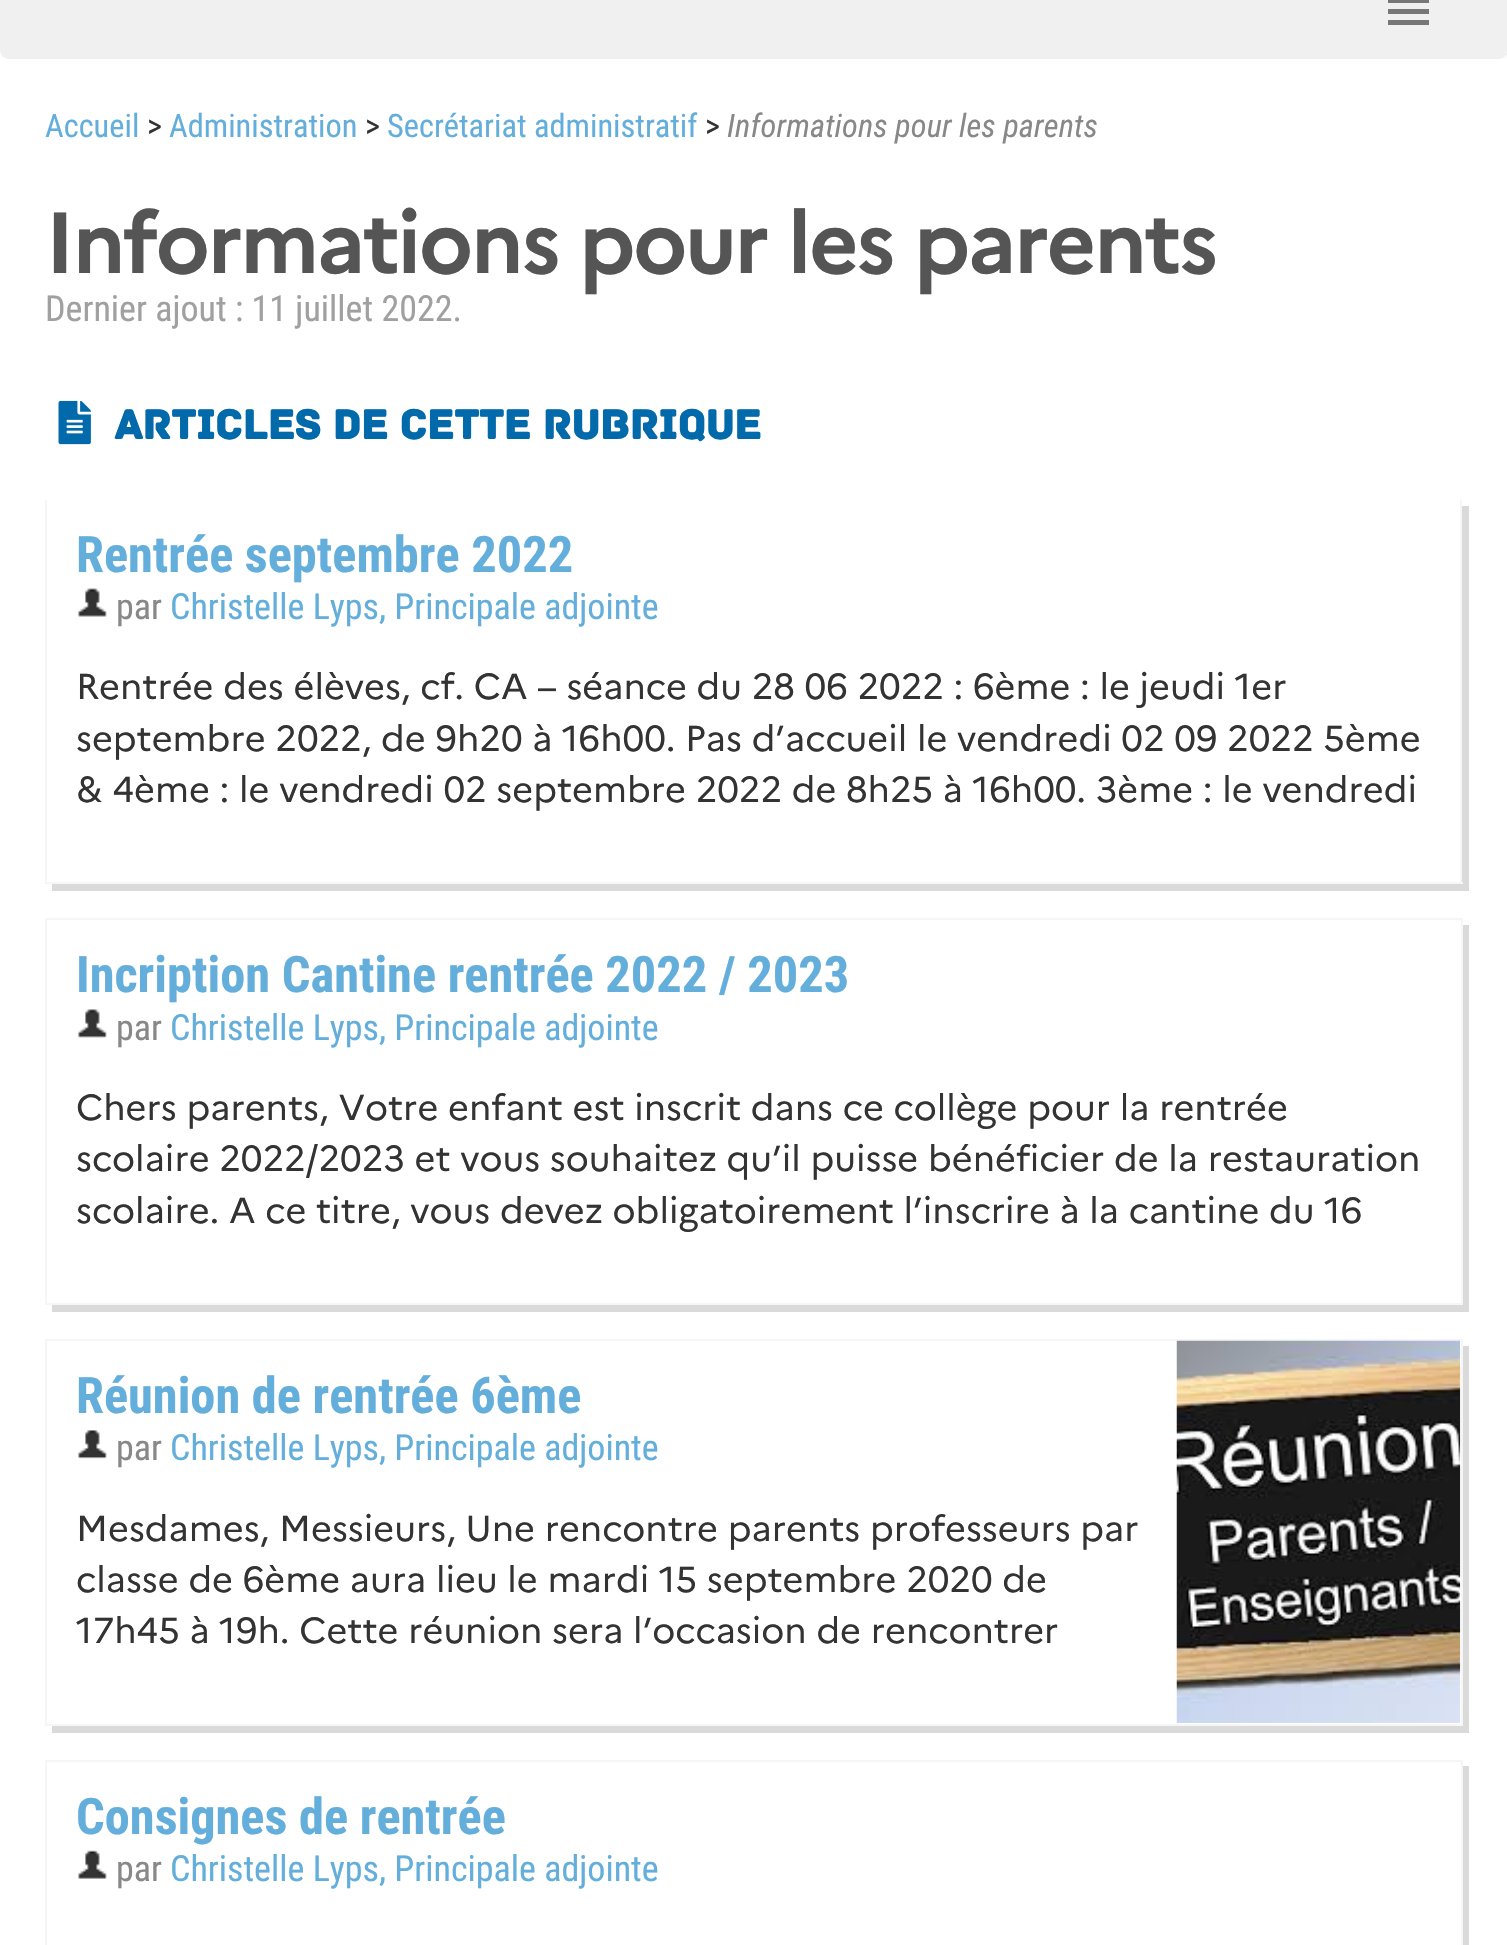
static SkFont makeFont(const char* family, int weight, float size, bool italic = false) {
  SkFontStyle style(weight, SkFontStyle::kNormal_Width,
    italic ? SkFontStyle::kItalic_Slant : SkFontStyle::kUpright_Slant);
  SkFont result(fontMgr->matchFamilyStyle(family, style), size);
  result.setSubpixel(true);
  return result;
}

static void text(SkCanvas* c, const char* s, float x, float y, const SkFont& font, SkColor color) {
  SkPaint ink(SkColor4f::FromColor(color));
  ink.setAntiAlias(true);
  c->drawString(s, x, y, font, ink);
}

static void spacedText(SkCanvas* c, const char* s, float x, float y, const SkFont& font, const SkPaint& ink, float letter, float word) {
  std::vector<SkGlyphID> glyphs(font.countText(s, strlen(s), SkTextEncoding::kUTF8));
  std::vector<float> xs(glyphs.size());
  font.textToGlyphs(s, strlen(s), SkTextEncoding::kUTF8, glyphs);
  font.getXPos(glyphs, xs, x);
  float extra = 0;
  for (size_t i = 0; i < glyphs.size(); i++) {
    xs[i] += extra;
    extra += letter + word * (glyphs[i] == font.unicharToGlyph(' '));
  }
  c->drawTextBlob(SkTextBlob::MakeFromPosHGlyphs(glyphs, xs, y, font), 0, 0, ink);
}

static void box(SkCanvas* c, float l, float t, float r, float b, SkColor color) {
  SkPaint ink(SkColor4f::FromColor(color));
  ink.setAntiAlias(true);
  c->drawRect(SkRect::MakeLTRB(l, t, r, b), ink);
}

static void roundBox(SkCanvas* c, float l, float t, float r, float b, float radius, SkColor color) {
  SkPaint ink(SkColor4f::FromColor(color));
  ink.setAntiAlias(true);
  c->drawRoundRect(SkRect::MakeLTRB(l, t, r, b), radius, radius, ink);
}

static void picture(SkCanvas* c, const char* path, float l, float t, float r, float b) {
  auto image = SkImages::DeferredFromEncodedData(SkData::MakeFromFileName(path));
  c->drawImageRect(image, SkRect::MakeLTRB(l, t, r, b), SkSamplingOptions());
}

void draw(SkCanvas* c) {
  SkPaint paint;
  paint.setAntiAlias(true);
  c->clear(0xffffffff);
  roundBox(c, 0, -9, 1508, 59, 9, 0xfff0f0f0);
  box(c, 1388, 0, 1429, 3, 0xff777777);
  box(c, 1388, 9, 1429, 14, 0xff777777);
  box(c, 1388, 20, 1429, 25, 0xff777777);
  SkFont face1 = makeFont("Roboto Condensed", 400, 32.4f);
  text(c, "Accueil", 45, 137, face1, 0xff64aedb);
  text(c, ">", 147, 137, face1, 0xff333333);
  text(c, "Administration", 169, 137, face1, 0xff64aedb);
  text(c, ">", 365, 137, face1, 0xff333333);
  text(c, "Secrétariat administratif", 387, 137, face1, 0xff64aedb);
  text(c, ">", 705, 137, face1, 0xff333333);
  SkFont face2 = makeFont("Roboto Condensed", 400, 32.4f, true);
  text(c, "Informations pour les parents", 727, 137, face2, 0xff888888);
  SkFont face3 = makeFont("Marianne", 700, 86.4f);
  paint.setColor(0xff555555);
  spacedText(c, "Informations pour les parents", 45, 273, face3, paint, -2.6f, 0);
  SkFont face4 = makeFont("Roboto Condensed", 400, 36);
  text(c, "Dernier ajout : 11 juillet 2022.", 45, 321, face4, 0xffa0a0a0);
  picture(c, "img_01.png", 58, 400, 91, 445);
  SkFont face5 = makeFont("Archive", 700, 43.25f);
  text(c, "Articles de cette rubrique", 114, 439, face5, 0xff026aaa);
  paint.setColor(0xffdadada);
  c->drawPath(SkPathBuilder().moveTo(52, 884).lineTo(52, 891).lineTo(1469, 891).lineTo(1469, 506).lineTo(1462, 506).lineTo(1462, 884).close().detach(), paint);
  box(c, 1460, 500, 1462, 884, 0xfff6f6f6);
  box(c, 45, 882, 1463, 884, 0xfff6f6f6);
  box(c, 45, 500, 47, 884, 0xfff6f6f6);
  SkFont face6 = makeFont("Roboto Condensed", 700, 50.4f);
  text(c, "Rentrée septembre 2022", 76, 572, face6, 0xff64aedb);
  picture(c, "img_02.png", 78, 588, 107, 617);
  text(c, "par", 116, 619, face4, 0xff888888);
  text(c, "Christelle Lyps, Principale adjointe", 170, 619, face4, 0xff64aedb);
  SkFont face7 = makeFont("Marianne", 400, 36);
  text(c, "Rentrée des élèves, cf. CA – séance du 28 06 2022 : 6ème : le jeudi 1er", 76, 699, face7, 0xff333333);
  text(c, "septembre 2022, de 9h20 à 16h00. Pas d’accueil le vendredi 02 09 2022 5ème", 76, 751, face7, 0xff333333);
  text(c, "& 4ème : le vendredi 02 septembre 2022 de 8h25 à 16h00. 3ème : le vendredi", 76, 802, face7, 0xff333333);
  c->drawPath(SkPathBuilder().moveTo(52, 1305).lineTo(52, 1312).lineTo(1469, 1312).lineTo(1469, 925).lineTo(1462, 925).lineTo(1462, 1305).close().detach(), paint);
  paint.setStyle(SkPaint::kStroke_Style);
  paint.setStrokeWidth(2);
  paint.setColor(0xfff6f6f6);
  c->drawRect(SkRect::MakeLTRB(46, 919, 1462, 1304), paint);
  text(c, "Incription Cantine rentrée 2022 / 2023", 76, 992, face6, 0xff64aedb);
  picture(c, "img_03.png", 78, 1009, 107, 1038);
  text(c, "par", 116, 1040, face4, 0xff888888);
  text(c, "Christelle Lyps, Principale adjointe", 170, 1040, face4, 0xff64aedb);
  text(c, "Chers parents, Votre enfant est inscrit dans ce collège pour la rentrée", 76, 1120, face7, 0xff333333);
  text(c, "scolaire 2022/2023 et vous souhaitez qu’il puisse bénéficier de la restauration", 76, 1171, face7, 0xff333333);
  text(c, "scolaire. A ce titre, vous devez obligatoirement l’inscrire à la cantine du 16", 76, 1223, face7, 0xff333333);
  paint.setStyle(SkPaint::kFill_Style);
  paint.setColor(0xffdadada);
  c->drawPath(SkPathBuilder().moveTo(52, 1726).lineTo(52, 1733).lineTo(1469, 1733).lineTo(1469, 1346).lineTo(1462, 1346).lineTo(1462, 1726).close().detach(), paint);
  paint.setStyle(SkPaint::kStroke_Style);
  paint.setColor(0xfff6f6f6);
  c->drawRect(SkRect::MakeLTRB(46, 1340, 1462, 1725), paint);
  text(c, "Réunion de rentrée 6ème", 76, 1413, face6, 0xff64aedb);
  picture(c, "img_04.png", 78, 1430, 107, 1459);
  text(c, "par", 116, 1460, face4, 0xff888888);
  text(c, "Christelle Lyps, Principale adjointe", 170, 1460, face4, 0xff64aedb);
  text(c, "Mesdames, Messieurs, Une rencontre parents professeurs par", 76, 1541, face7, 0xff333333);
  text(c, "classe de 6ème aura lieu le mardi 15 septembre 2020 de", 76, 1592, face7, 0xff333333);
  text(c, "17h45 à 19h. Cette réunion sera l’occasion de rencontrer", 76, 1643, face7, 0xff333333);
  picture(c, "img_05.png", 1176, 1340, 1461, 1723);
  paint.setStyle(SkPaint::kFill_Style);
  paint.setColor(0xffdadada);
  c->drawPath(SkPathBuilder().moveTo(52, 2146).lineTo(52, 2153).lineTo(1469, 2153).lineTo(1469, 1766).lineTo(1462, 1766).lineTo(1462, 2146).close().detach(), paint);
  paint.setStyle(SkPaint::kStroke_Style);
  paint.setColor(0xfff6f6f6);
  c->drawRect(SkRect::MakeLTRB(46, 1761, 1462, 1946), paint);
  text(c, "Consignes de rentrée", 76, 1834, face6, 0xff64aedb);
  picture(c, "img_06.png", 78, 1850, 107, 1879);
  text(c, "par", 116, 1881, face4, 0xff888888);
  text(c, "Christelle Lyps, Principale adjointe", 170, 1881, face4, 0xff64aedb);
}
